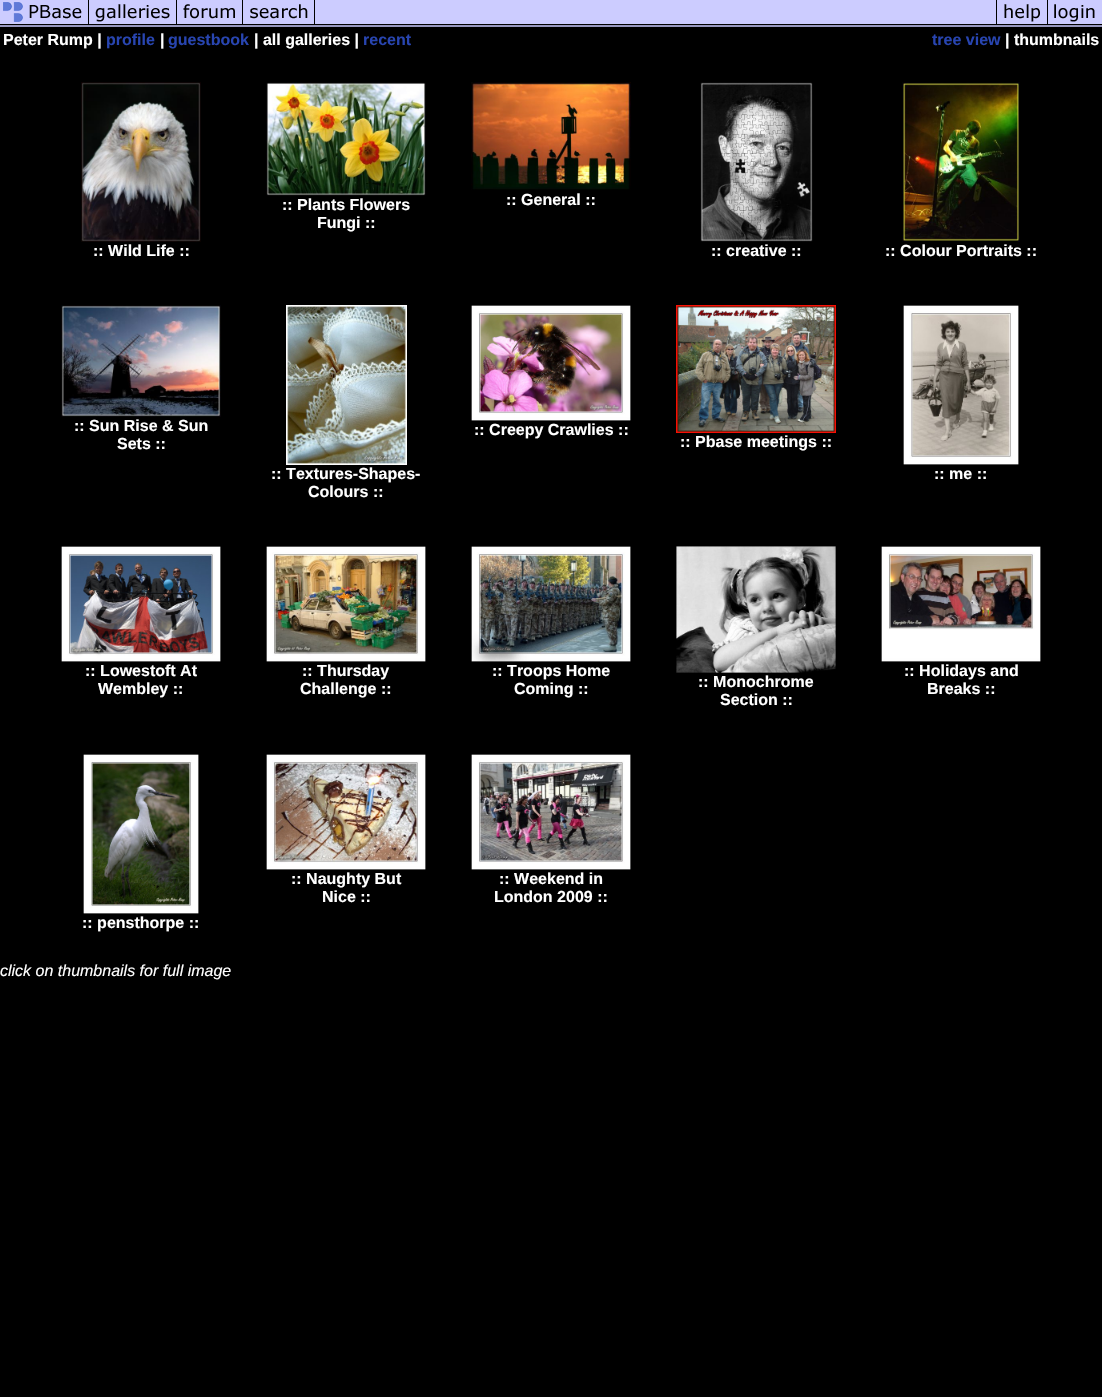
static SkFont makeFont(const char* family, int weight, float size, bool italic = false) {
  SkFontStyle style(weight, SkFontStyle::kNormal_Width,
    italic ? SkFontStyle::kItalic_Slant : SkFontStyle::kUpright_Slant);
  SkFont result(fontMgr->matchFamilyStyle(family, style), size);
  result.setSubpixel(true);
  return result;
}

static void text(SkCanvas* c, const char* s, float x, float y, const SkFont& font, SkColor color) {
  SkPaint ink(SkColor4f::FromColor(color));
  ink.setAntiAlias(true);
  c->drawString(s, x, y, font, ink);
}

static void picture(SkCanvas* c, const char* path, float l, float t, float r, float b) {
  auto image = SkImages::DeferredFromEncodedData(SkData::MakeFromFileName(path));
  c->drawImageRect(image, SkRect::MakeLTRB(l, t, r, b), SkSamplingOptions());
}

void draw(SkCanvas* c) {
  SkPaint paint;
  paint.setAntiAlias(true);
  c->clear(0xff000000);
  picture(c, "img_01.png", 0, 0, 89, 27);
  picture(c, "img_02.png", 89, 0, 177, 27);
  picture(c, "img_03.png", 177, 0, 243, 27);
  picture(c, "img_04.png", 243, 0, 315, 27);
  picture(c, "img_05.png", 315, 0, 996, 27);
  picture(c, "img_06.png", 996, 0, 1048, 27);
  picture(c, "img_07.png", 1048, 0, 1102, 27);
  SkFont face1 = makeFont("Liberation Sans", 700, 16);
  text(c, "Peter Rump |", 3, 45, face1, 0xffffffff);
  text(c, "profile", 106, 45, face1, 0xff2845b1);
  text(c, "|", 160, 45, face1, 0xffffffff);
  text(c, "guestbook", 168, 45, face1, 0xff2845b1);
  text(c, "| all galleries |", 254, 45, face1, 0xffffffff);
  text(c, "recent", 363, 45, face1, 0xff2845b1);
  text(c, "tree view", 932, 45, face1, 0xff2845b1);
  text(c, "| thumbnails", 1005, 45, face1, 0xffffffff);
  picture(c, "img_08.png", 266, 82, 426, 196);
  text(c, ":: Plants Flowers", 282, 210, face1, 0xffffffff);
  text(c, "Fungi ::", 317, 228, face1, 0xffffffff);
  picture(c, "img_09.png", 471, 82, 631, 190);
  text(c, ":: General ::", 506, 205, face1, 0xffffffff);
  picture(c, "img_10.png", 81, 82, 201, 242);
  text(c, ":: Wild Life ::", 93, 256, face1, 0xffffffff);
  picture(c, "img_11.png", 700, 82, 813, 242);
  text(c, ":: creative ::", 711, 256, face1, 0xffffffff);
  picture(c, "img_12.png", 902, 82, 1020, 242);
  text(c, ":: Colour Portraits ::", 885, 256, face1, 0xffffffff);
  picture(c, "img_13.png", 61, 305, 221, 417);
  text(c, ":: Sun Rise & Sun", 74, 431, face1, 0xffffffff);
  text(c, "Sets ::", 117, 449, face1, 0xffffffff);
  picture(c, "img_14.png", 471, 305, 631, 421);
  text(c, ":: Creepy Crawlies ::", 474, 435, face1, 0xffffffff);
  picture(c, "img_15.png", 676, 305, 836, 433);
  text(c, ":: Pbase meetings ::", 680, 447, face1, 0xffffffff);
  picture(c, "img_16.png", 286, 305, 407, 465);
  text(c, ":: Textures-Shapes-", 271, 479, face1, 0xffffffff);
  text(c, "Colours ::", 308, 497, face1, 0xffffffff);
  picture(c, "img_17.png", 903, 305, 1019, 465);
  text(c, ":: me ::", 934, 479, face1, 0xffffffff);
  picture(c, "img_18.png", 61, 546, 221, 662);
  text(c, ":: Lowestoft At", 85, 676, face1, 0xffffffff);
  text(c, "Wembley ::", 98, 694, face1, 0xffffffff);
  picture(c, "img_19.png", 266, 546, 426, 662);
  text(c, ":: Thursday", 302, 676, face1, 0xffffffff);
  text(c, "Challenge ::", 300, 694, face1, 0xffffffff);
  picture(c, "img_20.png", 471, 546, 631, 662);
  text(c, ":: Troops Home", 492, 676, face1, 0xffffffff);
  text(c, "Coming ::", 514, 694, face1, 0xffffffff);
  picture(c, "img_21.png", 676, 546, 836, 673);
  text(c, ":: Monochrome", 698, 687, face1, 0xffffffff);
  text(c, "Section ::", 720, 705, face1, 0xffffffff);
  picture(c, "img_22.png", 881, 546, 1041, 662);
  text(c, ":: Holidays and", 904, 676, face1, 0xffffffff);
  text(c, "Breaks ::", 927, 694, face1, 0xffffffff);
  picture(c, "img_23.png", 266, 754, 426, 870);
  text(c, ":: Naughty But", 291, 884, face1, 0xffffffff);
  text(c, "Nice ::", 322, 902, face1, 0xffffffff);
  picture(c, "img_24.png", 471, 754, 631, 870);
  text(c, ":: Weekend in", 499, 884, face1, 0xffffffff);
  text(c, "London 2009 ::", 494, 902, face1, 0xffffffff);
  picture(c, "img_25.png", 83, 754, 199, 914);
  text(c, ":: pensthorpe ::", 82, 928, face1, 0xffffffff);
  SkFont face2 = makeFont("Liberation Sans", 400, 16, true);
  text(c, "click on thumbnails for full image", 0, 976, face2, 0xffffffff);
}
